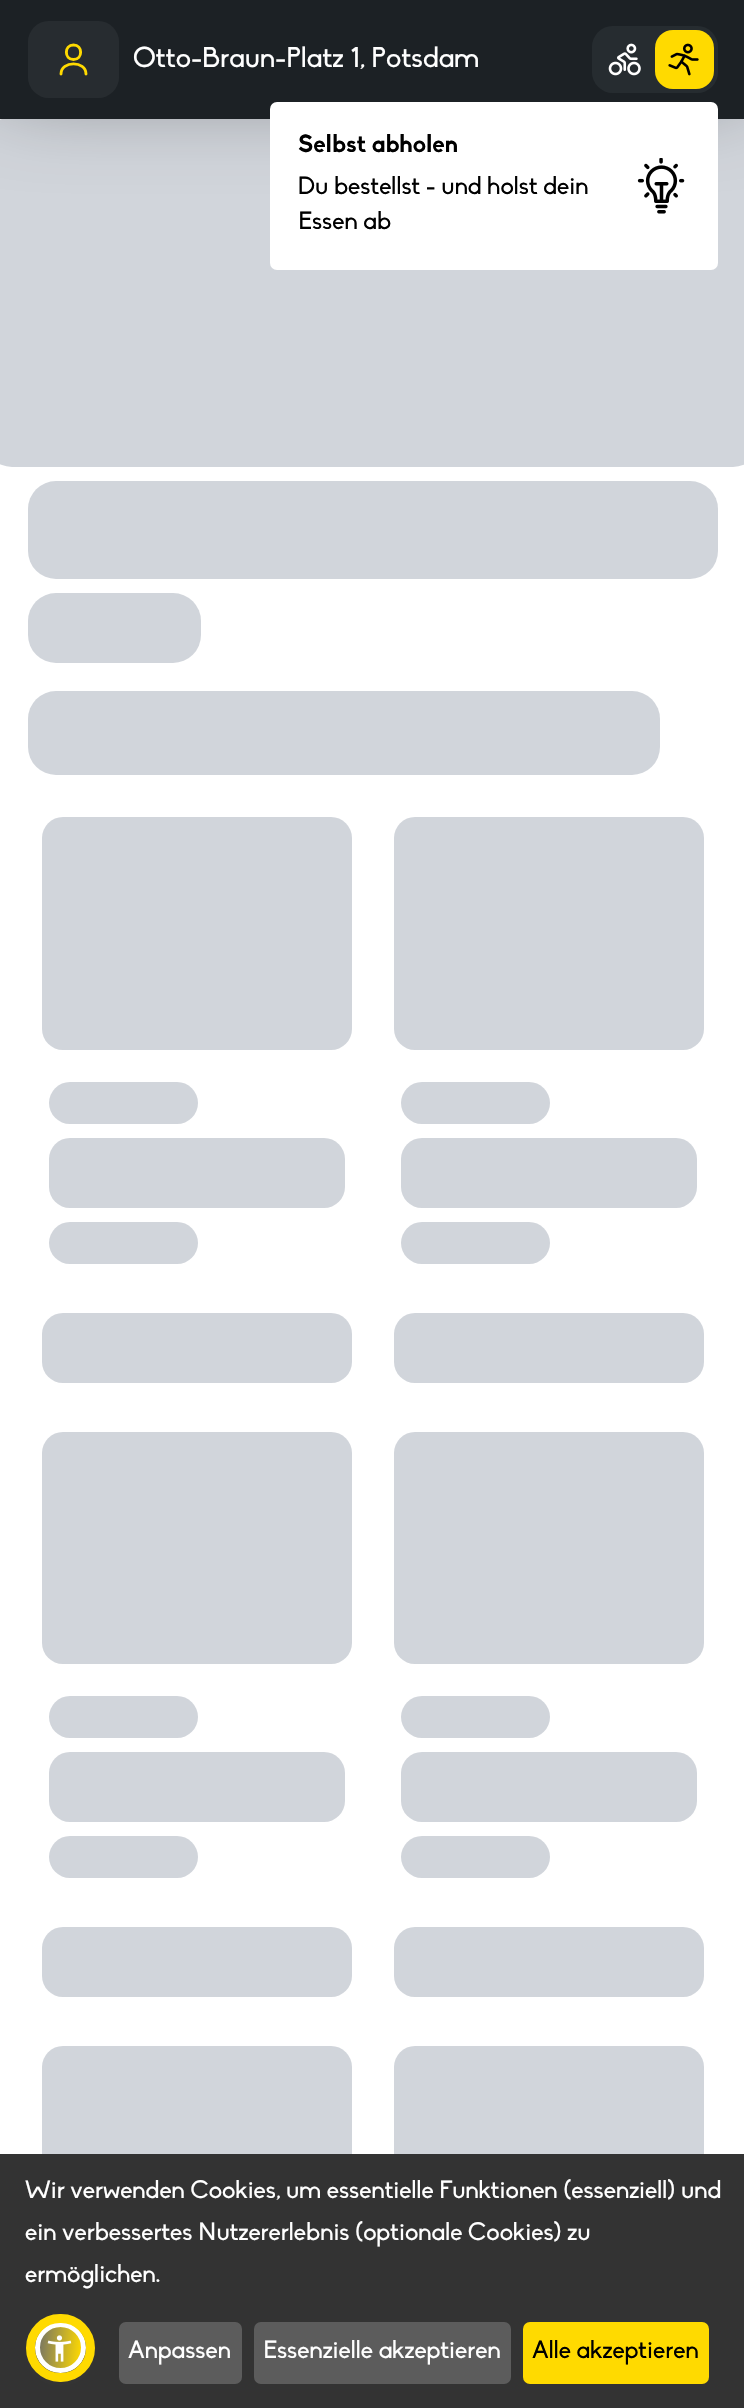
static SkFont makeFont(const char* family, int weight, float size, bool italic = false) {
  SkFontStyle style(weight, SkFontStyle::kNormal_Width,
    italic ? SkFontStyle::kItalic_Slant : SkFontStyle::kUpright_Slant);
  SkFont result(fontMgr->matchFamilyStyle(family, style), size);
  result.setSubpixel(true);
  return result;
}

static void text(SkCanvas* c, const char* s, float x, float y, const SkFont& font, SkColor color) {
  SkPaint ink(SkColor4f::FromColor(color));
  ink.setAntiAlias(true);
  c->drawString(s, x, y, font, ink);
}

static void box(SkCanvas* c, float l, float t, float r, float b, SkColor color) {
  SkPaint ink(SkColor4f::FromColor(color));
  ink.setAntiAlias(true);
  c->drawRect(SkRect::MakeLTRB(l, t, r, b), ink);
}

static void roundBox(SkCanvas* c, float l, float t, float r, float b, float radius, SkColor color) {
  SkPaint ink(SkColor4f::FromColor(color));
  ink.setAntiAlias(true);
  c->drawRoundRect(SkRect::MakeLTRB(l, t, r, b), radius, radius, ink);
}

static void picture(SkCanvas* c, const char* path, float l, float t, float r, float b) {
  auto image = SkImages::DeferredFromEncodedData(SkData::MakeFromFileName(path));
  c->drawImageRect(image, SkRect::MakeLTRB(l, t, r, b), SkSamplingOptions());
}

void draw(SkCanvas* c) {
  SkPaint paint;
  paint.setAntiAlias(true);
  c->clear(0xffffffff);
  roundBox(c, -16, 117, 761, 467, 28, 0xffd1d5db);
  paint.setColor(0x82000000);
  paint.setMaskFilter(SkMaskFilter::MakeBlur(kNormal_SkBlurStyle, 45.5f));
  c->drawRect(SkRect::MakeLTRB(0, -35, 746, 84), paint);
  paint.setMaskFilter(nullptr);
  box(c, 0, 0, 744, 119, 0xff1c2125);
  roundBox(c, 28, 21, 119, 98, 21, 0xff272c30);
  paint.setStyle(SkPaint::kStroke_Style);
  paint.setStrokeWidth(2.9f);
  paint.setStrokeCap(SkPaint::kRound_Cap);
  paint.setStrokeJoin(SkPaint::kRound_Join);
  paint.setColor(0xffffda00);
  c->drawPath(SkPathBuilder().moveTo(73.5f, 59.5f).cubicTo(83, 59.5f, 83, 45, 73.5f, 45).cubicTo(64, 45, 64, 59.5f, 73.5f, 59.5f).close().moveTo(86, 74).cubicTo(86, 60.5f, 61, 60.5f, 61, 74).detach(), paint);
  SkFont face1 = makeFont("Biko", 400, 28);
  text(c, "Otto-Braun-Platz 1, Potsdam", 133, 67, face1, 0xffffffff);
  roundBox(c, 592, 26, 718, 93, 21, 0xff262c30);
  picture(c, "img_01.png", 608, 43, 641, 76);
  roundBox(c, 655, 30, 714, 89, 18, 0xffffda00);
  picture(c, "img_02.png", 668, 43, 699, 76);
  roundBox(c, 270, 102, 718, 270, 7, 0xffffffff);
  SkFont face2 = makeFont("Biko", 700, 24.5f);
  text(c, "Selbst abholen", 298, 152, face2, 0xff000000);
  SkFont face3 = makeFont("Biko", 400, 24.5f);
  text(c, "Du bestellst - und holst dein", 298, 194, face3, 0xff000000);
  text(c, "Essen ab", 298, 229, face3, 0xff000000);
  picture(c, "img_03.png", 637, 158, 685, 214);
  roundBox(c, 28, 481, 718, 579, 28, 0xffd1d5db);
  roundBox(c, 28, 593, 201, 663, 28, 0xffd1d5db);
  roundBox(c, 28, 691, 660, 775, 28, 0xffd1d5db);
  roundBox(c, 42, 817, 352, 1050, 21, 0xffd1d5db);
  roundBox(c, 49, 1082, 198, 1124, 21, 0xffd1d5db);
  roundBox(c, 49, 1138, 345, 1208, 21, 0xffd1d5db);
  roundBox(c, 49, 1222, 198, 1264, 21, 0xffd1d5db);
  roundBox(c, 42, 1313, 352, 1383, 21, 0xffd1d5db);
  roundBox(c, 394, 817, 704, 1050, 21, 0xffd1d5db);
  roundBox(c, 401, 1082, 550, 1124, 21, 0xffd1d5db);
  roundBox(c, 401, 1138, 697, 1208, 21, 0xffd1d5db);
  roundBox(c, 401, 1222, 550, 1264, 21, 0xffd1d5db);
  roundBox(c, 394, 1313, 704, 1383, 21, 0xffd1d5db);
  roundBox(c, 42, 1432, 352, 1664, 21, 0xffd1d5db);
  roundBox(c, 49, 1696, 198, 1738, 21, 0xffd1d5db);
  roundBox(c, 49, 1752, 345, 1822, 21, 0xffd1d5db);
  roundBox(c, 49, 1836, 198, 1878, 21, 0xffd1d5db);
  roundBox(c, 42, 1927, 352, 1997, 21, 0xffd1d5db);
  roundBox(c, 394, 1432, 704, 1664, 21, 0xffd1d5db);
  roundBox(c, 401, 1696, 550, 1738, 21, 0xffd1d5db);
  roundBox(c, 401, 1752, 697, 1822, 21, 0xffd1d5db);
  roundBox(c, 401, 1836, 550, 1878, 21, 0xffd1d5db);
  roundBox(c, 394, 1927, 704, 1997, 21, 0xffd1d5db);
  roundBox(c, 42, 2046, 352, 2277, 21, 0xffd1d5db);
  roundBox(c, 394, 2046, 704, 2277, 21, 0xffd1d5db);
  box(c, 0, 2154, 744, 2408, 0xff333333);
  text(c, "Wir verwenden Cookies, um essentielle Funktionen (essenziell) und", 25, 2198, face3, 0xffffffff);
  text(c, "ein verbessertes Nutzererlebnis (optionale Cookies) zu", 25, 2240, face3, 0xffffffff);
  text(c, "ermöglichen.", 25, 2282, face3, 0xffffffff);
  roundBox(c, 119, 2322, 242, 2384, 7, 0xff5c5c5c);
  text(c, "Anpassen", 128, 2358, face3, 0xffffffff);
  roundBox(c, 254, 2322, 511, 2384, 7, 0xff5c5c5c);
  text(c, "Essenzielle akzeptieren", 263, 2358, face3, 0xffffffff);
  roundBox(c, 523, 2322, 709, 2384, 7, 0xffffda00);
  text(c, "Alle akzeptieren", 532, 2358, face3, 0xff000000);
  paint.setStyle(SkPaint::kFill_Style);
  paint.setColor(0x335d6494);
  paint.setMaskFilter(SkMaskFilter::MakeBlur(kNormal_SkBlurStyle, 3.5f));
  c->drawRoundRect(SkRect::MakeLTRB(35, 2326, 86, 2377), 25.5f, 25.5f, paint);
  paint.setMaskFilter(nullptr);
  c->save();
  c->clipPath(SkPathBuilder().moveTo(60.5f, 2322).cubicTo(74.5f, 2322, 86, 2333.5f, 86, 2347.5f).cubicTo(86, 2361.5f, 74.5f, 2373, 60.5f, 2373).cubicTo(46.5f, 2373, 35, 2361.5f, 35, 2347.5f).cubicTo(35, 2333.5f, 46.5f, 2322, 60.5f, 2322).close().detach(), true);
  {
    const SkColor colors[] = {0xff777564, 0xffffda00};
    const float stops[] = {0, 1};
    const SkPoint ends[] = {{38, 2305}, {82, 2310}};
    paint.setShader(SkGradientShader::MakeLinear(ends, colors, stops, 2, SkTileMode::kClamp));
    paint.setAlpha(255);
  }
  c->drawRect(SkRect::MakeLTRB(40, 2323, 81, 2328), paint);
  {
    const SkColor colors[] = {0xff777564, 0xffffda00};
    const float stops[] = {0, 1};
    const SkPoint ends[] = {{38, 2345}, {82, 2350}};
    paint.setShader(SkGradientShader::MakeLinear(ends, colors, stops, 2, SkTileMode::kClamp));
    paint.setAlpha(255);
  }
  c->drawRect(SkRect::MakeLTRB(40, 2328, 81, 2368), paint);
  c->restore();
  paint.setStyle(SkPaint::kStroke_Style);
  paint.setStrokeWidth(5);
  paint.setStrokeCap(SkPaint::kButt_Cap);
  paint.setStrokeJoin(SkPaint::kMiter_Join);
  paint.setShader(nullptr);
  paint.setColor(0xffffffff);
  c->drawCircle(60.5f, 2347.5f, 23, paint);
  paint.setStrokeWidth(9);
  paint.setColor(0xffffda00);
  c->drawRoundRect(SkRect::MakeLTRB(30.5f, 2318.5f, 90.5f, 2377.5f), 29.5f, 29.5f, paint);
  picture(c, "img_04.png", 47, 2335, 72, 2362);
}
